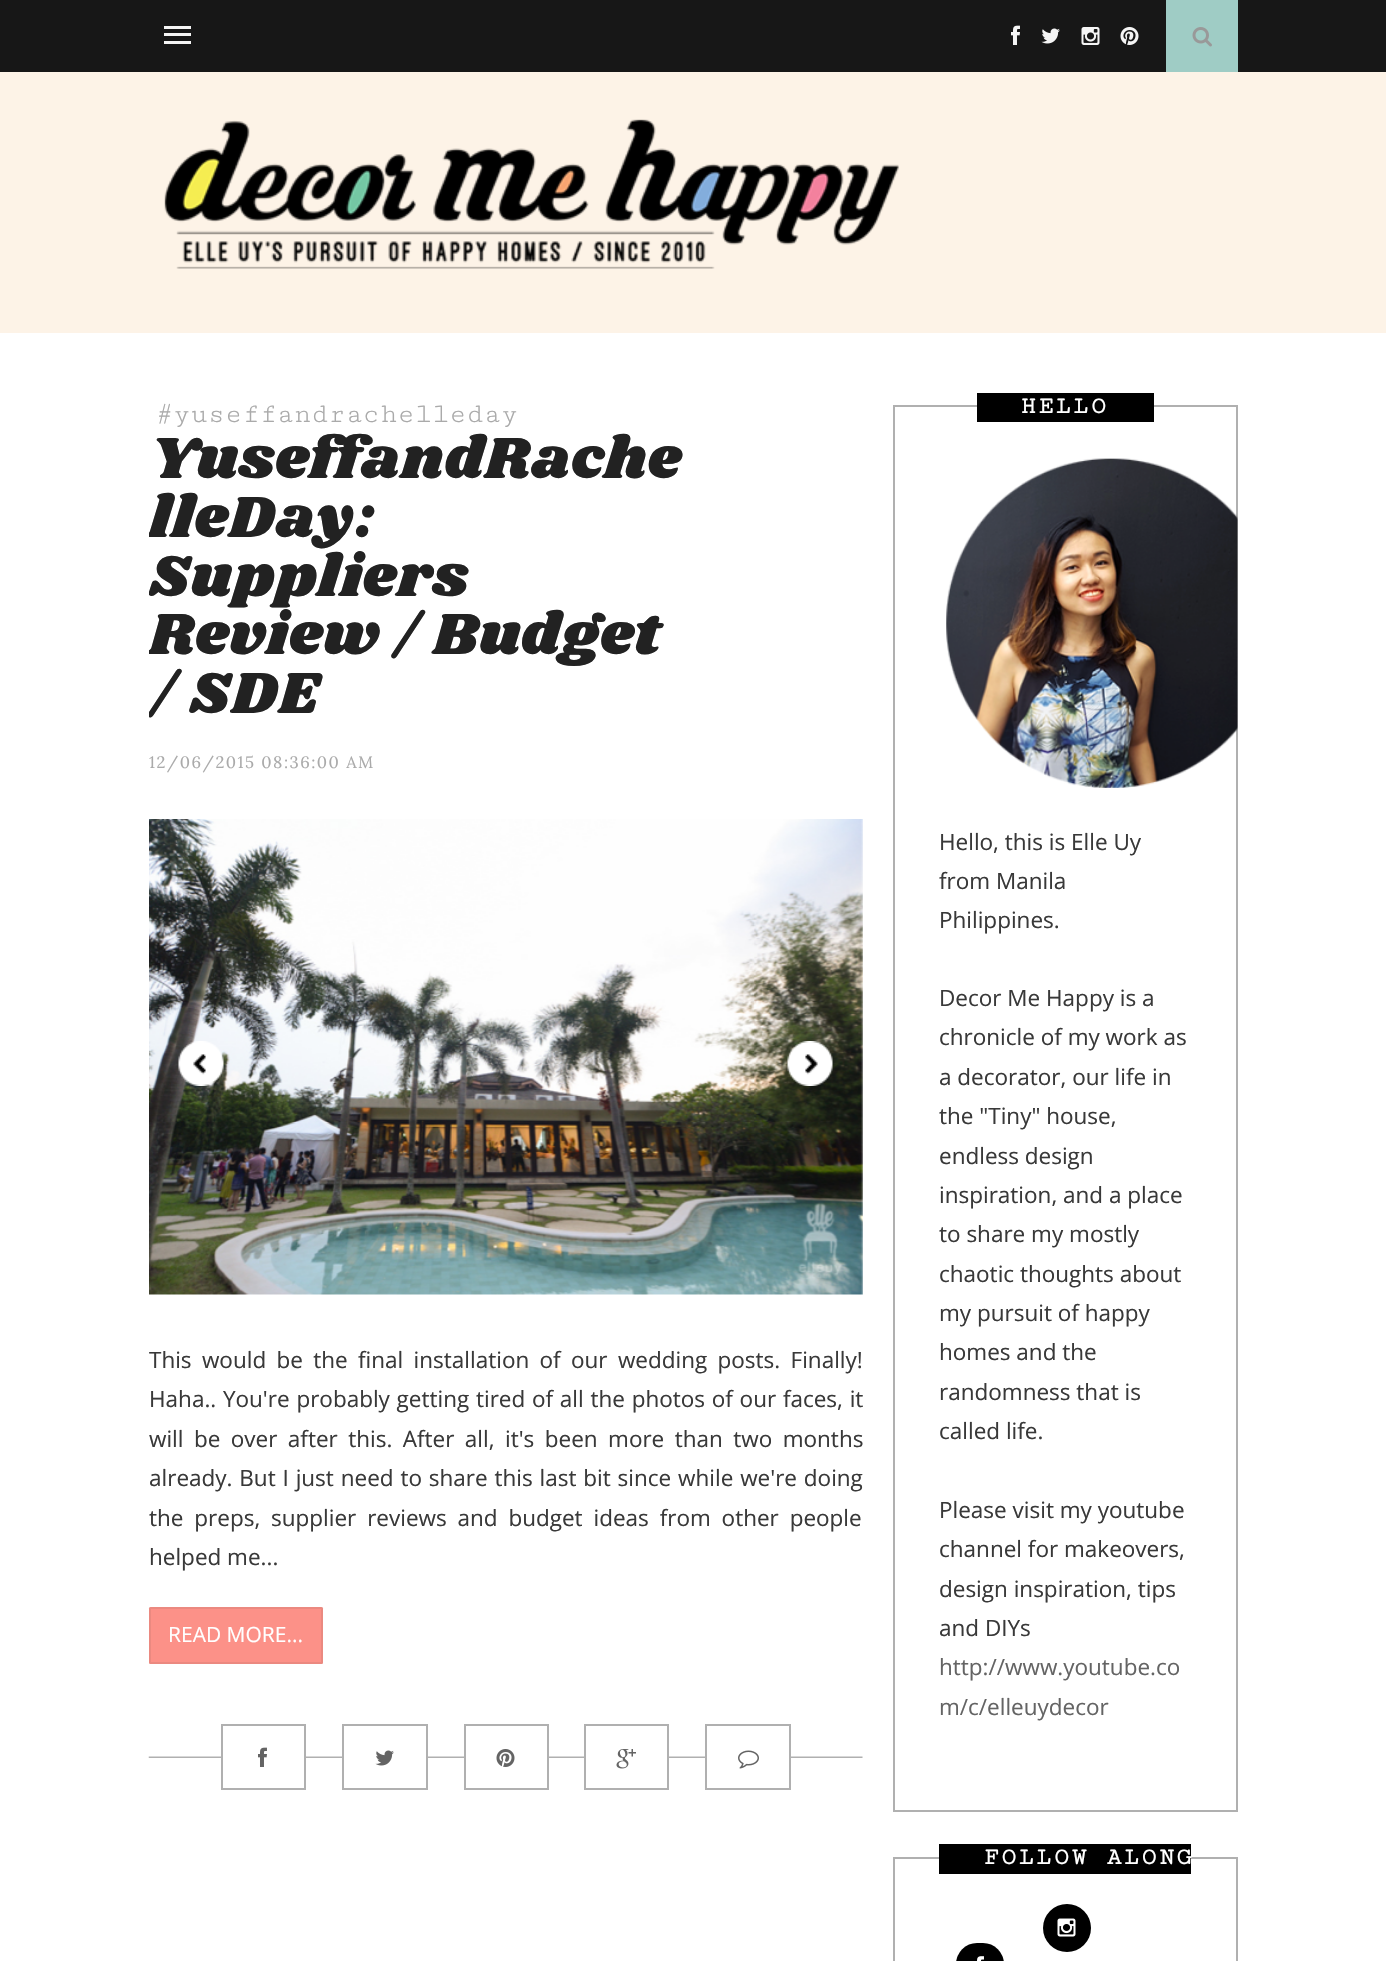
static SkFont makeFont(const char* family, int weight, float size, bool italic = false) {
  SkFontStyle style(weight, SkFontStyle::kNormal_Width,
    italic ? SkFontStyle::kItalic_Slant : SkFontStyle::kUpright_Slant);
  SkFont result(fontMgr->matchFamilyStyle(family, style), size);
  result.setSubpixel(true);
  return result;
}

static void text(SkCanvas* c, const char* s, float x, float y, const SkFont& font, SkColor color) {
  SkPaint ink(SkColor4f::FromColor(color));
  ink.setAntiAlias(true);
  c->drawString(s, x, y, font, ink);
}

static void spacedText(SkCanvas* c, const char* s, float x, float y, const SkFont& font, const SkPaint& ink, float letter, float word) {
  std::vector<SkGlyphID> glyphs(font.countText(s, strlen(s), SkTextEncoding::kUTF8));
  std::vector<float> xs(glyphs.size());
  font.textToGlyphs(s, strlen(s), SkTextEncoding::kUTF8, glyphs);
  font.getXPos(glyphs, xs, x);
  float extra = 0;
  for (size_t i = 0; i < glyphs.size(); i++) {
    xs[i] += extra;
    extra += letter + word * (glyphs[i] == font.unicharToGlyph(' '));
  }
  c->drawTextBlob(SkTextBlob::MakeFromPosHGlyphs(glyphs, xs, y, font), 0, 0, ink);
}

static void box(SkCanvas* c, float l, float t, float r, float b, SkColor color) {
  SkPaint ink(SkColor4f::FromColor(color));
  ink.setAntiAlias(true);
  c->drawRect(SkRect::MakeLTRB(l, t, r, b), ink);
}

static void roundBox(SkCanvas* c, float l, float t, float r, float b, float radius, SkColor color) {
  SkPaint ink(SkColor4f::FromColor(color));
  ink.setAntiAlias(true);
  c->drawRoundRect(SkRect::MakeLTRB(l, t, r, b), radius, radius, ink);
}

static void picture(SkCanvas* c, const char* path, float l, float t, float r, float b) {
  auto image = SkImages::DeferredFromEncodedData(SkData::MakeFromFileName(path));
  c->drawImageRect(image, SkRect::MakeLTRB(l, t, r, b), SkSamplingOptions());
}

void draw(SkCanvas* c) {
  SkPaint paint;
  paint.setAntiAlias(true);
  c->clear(0xffffffff);
  box(c, 0, 0, 1386, 72, 0xff171717);
  box(c, 164, 26, 191, 29, 0xfff5f5f5);
  box(c, 164, 33, 191, 36, 0xfff5f5f5);
  box(c, 164, 41, 191, 44, 0xfff5f5f5);
  picture(c, "img_01.png", 1011, 25, 1020, 45);
  picture(c, "img_02.png", 1041, 28, 1060, 44);
  picture(c, "img_03.png", 1081, 27, 1100, 45);
  picture(c, "img_04.png", 1120, 27, 1139, 45);
  box(c, 1166, 0, 1238, 72, 0xff9fccc5);
  picture(c, "img_05.png", 1192, 27, 1212, 47);
  box(c, 0, 72, 1386, 333, 0xfffdf3e7);
  picture(c, "img_06.png", 164, 119, 899, 269);
  SkFont face1 = makeFont("Cutive Mono", 400, 28.5f);
  text(c, "#yuseffandrachelleday", 156, 422, face1, 0xffaaaaaa);
  SkFont face2 = makeFont("Shrikhand", 400, 60);
  paint.setColor(0xff222222);
  spacedText(c, "YuseffandRache", 149, 478, face2, paint, 0.75f, 0);
  c->save();
  c->clipRect(SkRect::MakeLTRB(149, 393, 1238, 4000));
  spacedText(c, "lleDay:", 149, 537, face2, paint, 0.75f, 0);
  spacedText(c, "Suppliers", 149, 596, face2, paint, 0.75f, 0);
  spacedText(c, "Review / Budget", 149, 654, face2, paint, 0.75f, 0);
  spacedText(c, "/ SDE", 149, 713, face2, paint, 0.75f, 0);
  c->restore();
  SkFont face3 = makeFont("Lora", 400, 16.5f);
  paint.setColor(0xffaaaaaa);
  spacedText(c, "12/06/2015 08:36:00 AM", 149, 768, face3, paint, 1.5f, 0);
  picture(c, "img_07.png", 149, 819, 863, 1295);
  picture(c, "img_08.png", 178, 1041, 224, 1086);
  picture(c, "img_09.png", 787, 1041, 833, 1086);
  SkFont face4 = makeFont("Open Sans", 400, 22.5f);
  paint.setColor(0xff393939);
  spacedText(c, "This would be the final installation of our wedding posts. Finally!", 149, 1368, face4, paint, 0, 4.5f);
  spacedText(c, "Haha.. You're probably getting tired of all the photos of our faces, it", 149, 1407, face4, paint, 0, 0.9f);
  spacedText(c, "will be over after this. After all, it's been more than two months", 149, 1447, face4, paint, 0, 4.6f);
  spacedText(c, "already. But I just need to share this last bit since while we're doing", 149, 1486, face4, paint, 0, 1);
  spacedText(c, "the preps, supplier reviews and budget ideas from other people", 149, 1526, face4, paint, 0, 5);
  text(c, "helped me...", 149, 1565, face4, 0xff393939);
  roundBox(c, 149, 1607, 323, 1664, 1.5f, 0xfffc9188);
  paint.setStyle(SkPaint::kStroke_Style);
  paint.setStrokeWidth(2);
  paint.setColor(0x14222222);
  c->drawRect(SkRect::MakeLTRB(150, 1608, 322, 1663), paint);
  SkFont face5 = makeFont("Open Sans", 400, 21);
  text(c, "READ MORE...", 168, 1642, face5, 0xffffffff);
  picture(c, "img_10.png", 148, 1756, 863, 1758);
  box(c, 223, 1756, 304, 1758, 0xffffffff);
  paint.setColor(0xffb0b0b0);
  c->drawRect(SkRect::MakeLTRB(222, 1725, 305, 1789), paint);
  picture(c, "img_11.png", 258, 1747, 267, 1767);
  box(c, 344, 1756, 426, 1758, 0xffffffff);
  c->drawRect(SkRect::MakeLTRB(343, 1725, 427, 1789), paint);
  picture(c, "img_12.png", 375, 1750, 394, 1766);
  box(c, 466, 1756, 547, 1758, 0xffffffff);
  c->drawRect(SkRect::MakeLTRB(465, 1725, 548, 1789), paint);
  picture(c, "img_13.png", 496, 1749, 515, 1767);
  box(c, 586, 1756, 667, 1758, 0xffffffff);
  c->drawRect(SkRect::MakeLTRB(585, 1725, 668, 1789), paint);
  picture(c, "img_14.png", 616, 1749, 636, 1769);
  box(c, 707, 1756, 789, 1758, 0xffffffff);
  c->drawRect(SkRect::MakeLTRB(706, 1725, 790, 1789), paint);
  picture(c, "img_15.png", 738, 1750, 759, 1769);
  c->drawRect(SkRect::MakeLTRB(894, 406, 1237, 1811), paint);
  box(c, 977, 393, 1154, 422, 0xff000000);
  SkFont face6 = makeFont("Cutive Mono", 700, 24);
  paint.setStyle(SkPaint::kFill_Style);
  paint.setColor(0xffffffff);
  spacedText(c, "HELLO", 1021, 413, face6, paint, 3, 0);
  picture(c, "img_16.png", 946, 458, 1238, 788);
  text(c, "Hello, this is Elle Uy", 939, 850, face4, 0xff393939);
  text(c, "from Manila", 939, 889, face4, 0xff393939);
  text(c, "Philippines.", 939, 928, face4, 0xff393939);
  text(c, "Decor Me Happy is a", 939, 1006, face4, 0xff393939);
  text(c, "chronicle of my work as", 939, 1045, face4, 0xff393939);
  text(c, "a decorator, our life in", 939, 1085, face4, 0xff393939);
  text(c, "the \"Tiny\" house,", 939, 1124, face4, 0xff393939);
  text(c, "endless design", 939, 1164, face4, 0xff393939);
  text(c, "inspiration, and a place", 939, 1203, face4, 0xff393939);
  text(c, "to share my mostly", 939, 1242, face4, 0xff393939);
  text(c, "chaotic thoughts about", 939, 1282, face4, 0xff393939);
  text(c, "my pursuit of happy", 939, 1321, face4, 0xff393939);
  text(c, "homes and the", 939, 1360, face4, 0xff393939);
  text(c, "randomness that is", 939, 1400, face4, 0xff393939);
  text(c, "called life.", 939, 1439, face4, 0xff393939);
  text(c, "Please visit my youtube", 939, 1518, face4, 0xff393939);
  text(c, "channel for makeovers,", 939, 1557, face4, 0xff393939);
  text(c, "design inspiration, tips", 939, 1597, face4, 0xff393939);
  text(c, "and DIYs", 939, 1636, face4, 0xff393939);
  text(c, "http://www.youtube.co", 939, 1675, face4, 0xff646464);
  text(c, "m/c/elleuydecor", 939, 1715, face4, 0xff646464);
  paint.setStyle(SkPaint::kStroke_Style);
  paint.setColor(0xffb0b0b0);
  c->drawRect(SkRect::MakeLTRB(894, 1858, 1237, 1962), paint);
  box(c, 939, 1844, 1191, 1874, 0xff000000);
  paint.setStyle(SkPaint::kFill_Style);
  paint.setColor(0xffffffff);
  spacedText(c, "FOLLOW ALONG", 984, 1864, face6, paint, 3, 0);
  paint.setColor(0xff000000);
  c->drawCircle(1067, 1928, 24, paint);
  picture(c, "img_17.png", 1057, 1918, 1076, 1937);
  roundBox(c, 956, 1943, 1004, 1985, 24, 0xff000000);
  picture(c, "img_18.png", 977, 1956, 984, 1961);
}
